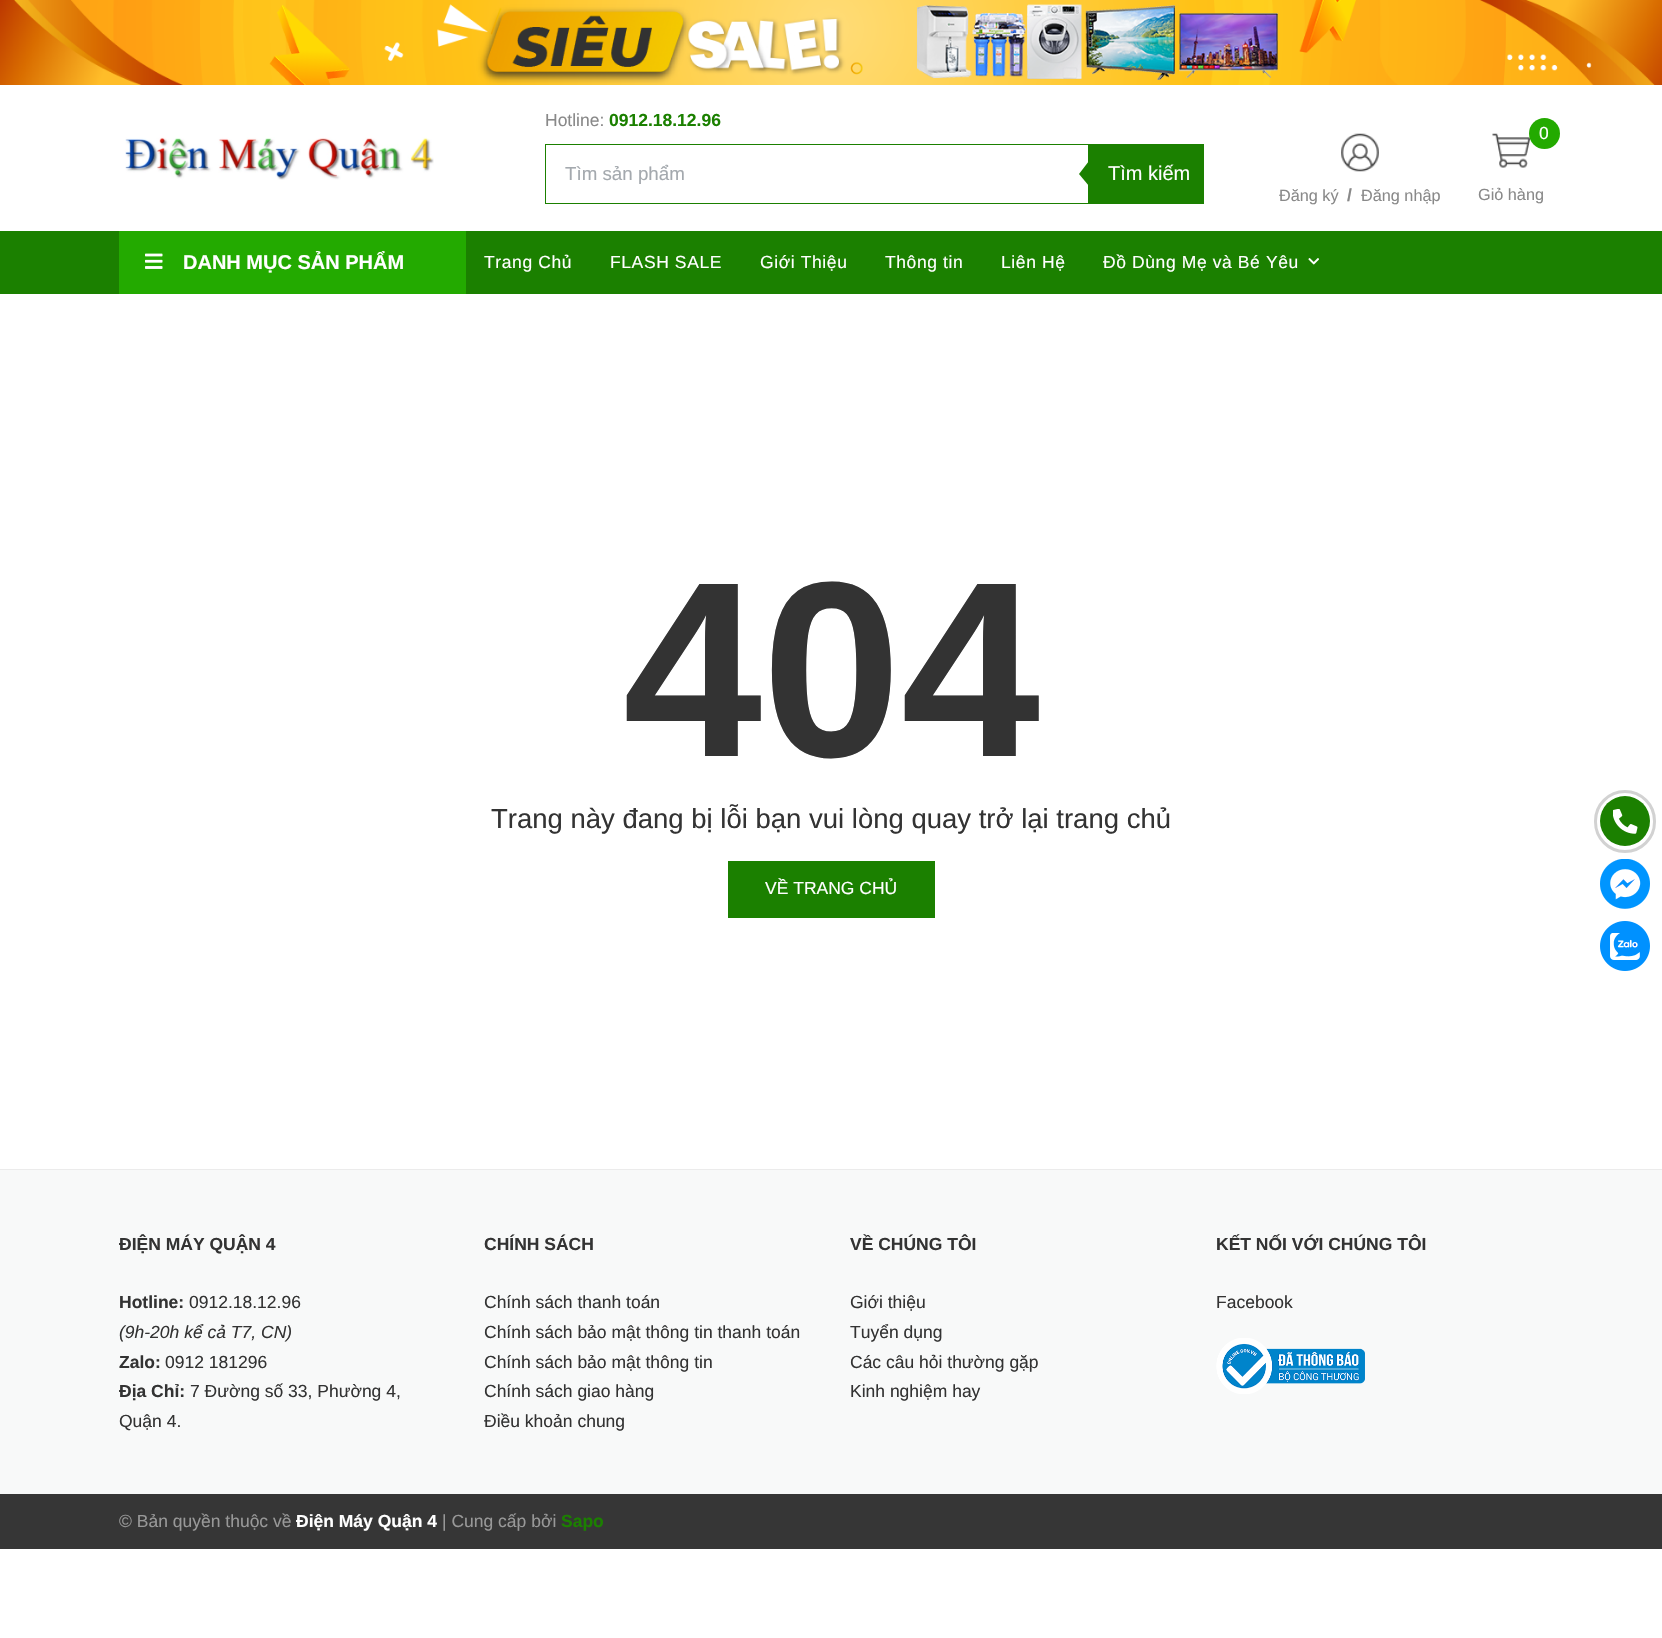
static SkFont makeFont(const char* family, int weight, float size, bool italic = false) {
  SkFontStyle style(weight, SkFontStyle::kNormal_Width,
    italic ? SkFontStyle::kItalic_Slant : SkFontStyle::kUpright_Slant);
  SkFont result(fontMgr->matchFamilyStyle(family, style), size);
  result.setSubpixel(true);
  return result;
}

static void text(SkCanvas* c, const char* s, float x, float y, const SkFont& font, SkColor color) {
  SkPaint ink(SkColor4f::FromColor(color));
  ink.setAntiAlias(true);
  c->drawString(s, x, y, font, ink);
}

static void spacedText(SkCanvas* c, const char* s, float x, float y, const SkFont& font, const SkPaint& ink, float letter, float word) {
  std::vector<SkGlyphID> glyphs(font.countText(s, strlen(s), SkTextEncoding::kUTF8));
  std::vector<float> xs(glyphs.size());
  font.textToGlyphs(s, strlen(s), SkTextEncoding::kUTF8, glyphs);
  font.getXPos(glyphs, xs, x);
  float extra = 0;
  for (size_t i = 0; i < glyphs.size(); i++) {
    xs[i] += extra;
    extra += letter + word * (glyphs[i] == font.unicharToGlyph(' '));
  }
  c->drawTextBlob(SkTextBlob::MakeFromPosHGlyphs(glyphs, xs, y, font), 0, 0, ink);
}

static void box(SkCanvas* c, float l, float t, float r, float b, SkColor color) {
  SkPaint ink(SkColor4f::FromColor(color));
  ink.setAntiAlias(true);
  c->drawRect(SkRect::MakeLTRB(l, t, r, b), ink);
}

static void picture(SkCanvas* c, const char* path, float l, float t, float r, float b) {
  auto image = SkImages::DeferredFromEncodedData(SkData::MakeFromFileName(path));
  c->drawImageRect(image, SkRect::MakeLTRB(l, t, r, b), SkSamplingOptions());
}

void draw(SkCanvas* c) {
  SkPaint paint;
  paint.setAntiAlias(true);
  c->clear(0xffffffff);
  picture(c, "img_01.png", 0, 0, 1662, 85);
  picture(c, "img_02.png", 125, 137, 434, 180);
  SkFont face1 = makeFont("Liberation Sans", 400, 17.5f);
  text(c, "Hotline:", 545, 126, face1, 0xff898989);
  SkFont face2 = makeFont("Liberation Sans", 700, 17.5f);
  text(c, "0912.18.12.96", 609, 126, face2, 0xff1b8000);
  paint.setStyle(SkPaint::kStroke_Style);
  paint.setStrokeWidth(1);
  paint.setColor(0xff1b8000);
  c->drawRect(SkRect::MakeLTRB(545.5f, 144.5f, 1203.5f, 203.5f), paint);
  SkFont face3 = makeFont("Liberation Sans", 400, 18.75f);
  text(c, "Tìm sản phẩm", 565, 180, face3, 0xffa4a9ae);
  box(c, 1088, 145, 1203, 203, 0xff1b8000);
  paint.setStyle(SkPaint::kFill_Style);
  c->drawPath(SkPathBuilder().moveTo(1089, 161).lineTo(1089, 186).lineTo(1079, 174).close().detach(), paint);
  SkFont face4 = makeFont("Liberation Sans", 400, 20);
  text(c, "Tìm kiếm", 1108, 180, face4, 0xffffffff);
  picture(c, "img_03.png", 1341, 133, 1379, 172);
  SkFont face5 = makeFont("Liberation Sans", 400, 16.25f);
  text(c, "Đăng ký", 1279, 201, face5, 0xff898989);
  text(c, "/", 1347, 201, face2, 0xff898989);
  text(c, "Đăng nhập", 1361, 201, face5, 0xff898989);
  picture(c, "img_04.png", 1492, 133, 1530, 168);
  paint.setColor(0xff23aa00);
  c->drawCircle(1544.5f, 133.5f, 15.5f, paint);
  text(c, "0", 1539, 139, face1, 0xffffffff);
  text(c, "Giỏ hàng", 1478, 200, face5, 0xff898989);
  box(c, 0, 231, 1662, 294, 0xff1b8000);
  box(c, 119, 231, 466, 294, 0xff23aa00);
  picture(c, "img_05.png", 145, 253, 163, 269);
  SkFont face6 = makeFont("Liberation Sans", 700, 20);
  text(c, "DANH MỤC SẢN PHẨM", 183, 269, face6, 0xffffffff);
  paint.setColor(0xffffffff);
  spacedText(c, "Trang Chủ", 484, 268, face1, paint, 0.6f, 0);
  spacedText(c, "FLASH SALE", 610, 268, face1, paint, 0.6f, 0);
  spacedText(c, "Giới Thiệu", 760, 268, face1, paint, 0.6f, 0);
  spacedText(c, "Thông tin", 885, 268, face1, paint, 0.6f, 0);
  spacedText(c, "Liên Hệ", 1001, 268, face1, paint, 0.6f, 0);
  spacedText(c, "Đồ Dùng Mẹ và Bé Yêu", 1103, 268, face1, paint, 0.6f, 0);
  picture(c, "img_06.png", 1308, 258, 1319, 265);
  SkFont face7 = makeFont("Liberation Sans", 700, 250);
  text(c, "404", 623, 756, face7, 0xff333333);
  SkFont face8 = makeFont("Liberation Sans", 400, 27.5f);
  text(c, "Trang này đang bị lỗi bạn vui lòng quay trở lại trang chủ", 491, 828, face8, 0xff333333);
  box(c, 728, 861, 935, 918, 0xff1b8000);
  text(c, "VỀ TRANG CHỦ", 765, 894, face1, 0xffffffff);
  paint.setStyle(SkPaint::kStroke_Style);
  paint.setStrokeWidth(3);
  paint.setColor(0xffd2d2d2);
  c->drawRoundRect(SkRect::MakeLTRB(1595.5f, 791.5f, 1654.5f, 851.5f), 29.5f, 29.5f, paint);
  paint.setStyle(SkPaint::kFill_Style);
  paint.setColor(0xff1b8000);
  c->drawCircle(1625, 821, 25, paint);
  picture(c, "img_07.png", 1613, 809, 1638, 834);
  picture(c, "img_08.png", 1600, 859, 1650, 909);
  picture(c, "img_09.png", 1600, 921, 1650, 971);
  box(c, 0, 1170, 1662, 1494, 0xfff8f9f9);
  box(c, 0, 1169, 1662, 1170, 0xffebebeb);
  text(c, "ĐIỆN MÁY QUẬN 4", 119, 1250, face2, 0xff333333);
  text(c, "Hotline:", 119, 1308, face2, 0xff333333);
  text(c, "0912.18.12.96", 189, 1308, face1, 0xff333333);
  SkFont face9 = makeFont("Liberation Sans", 400, 17.5f, true);
  text(c, "(9h-20h kể cả T7, CN)", 119, 1338, face9, 0xff333333);
  text(c, "Zalo:", 119, 1368, face2, 0xff333333);
  text(c, "0912 181296", 165, 1368, face1, 0xff333333);
  text(c, "Địa Chỉ:", 119, 1397, face2, 0xff333333);
  text(c, "7 Đường số 33, Phường 4,", 190, 1397, face1, 0xff333333);
  text(c, "Quận 4.", 119, 1427, face1, 0xff333333);
  text(c, "CHÍNH SÁCH", 484, 1250, face2, 0xff333333);
  text(c, "Chính sách thanh toán", 484, 1308, face1, 0xff333333);
  text(c, "Chính sách bảo mật thông tin thanh toán", 484, 1338, face1, 0xff333333);
  text(c, "Chính sách bảo mật thông tin", 484, 1368, face1, 0xff333333);
  text(c, "Chính sách giao hàng", 484, 1397, face1, 0xff333333);
  text(c, "Điều khoản chung", 484, 1427, face1, 0xff333333);
  text(c, "VỀ CHÚNG TÔI", 850, 1250, face2, 0xff333333);
  text(c, "Giới thiệu", 850, 1308, face1, 0xff333333);
  text(c, "Tuyển dụng", 850, 1338, face1, 0xff333333);
  text(c, "Các câu hỏi thường gặp", 850, 1368, face1, 0xff333333);
  text(c, "Kinh nghiệm hay", 850, 1397, face1, 0xff333333);
  text(c, "KẾT NỐI VỚI CHÚNG TÔI", 1216, 1250, face2, 0xff333333);
  text(c, "Facebook", 1216, 1308, face1, 0xff333333);
  picture(c, "img_10.png", 1216, 1338, 1365, 1394);
  box(c, 0, 1494, 1662, 1549, 0xff363636);
  text(c, "© Bản quyền thuộc về", 119, 1527, face1, 0xff989898);
  text(c, "Điện Máy Quận 4", 296, 1527, face2, 0xffffffff);
  text(c, "| Cung cấp bởi", 442, 1527, face1, 0xff989898);
  text(c, "Sapo", 561, 1527, face2, 0xff1b8000);
}
